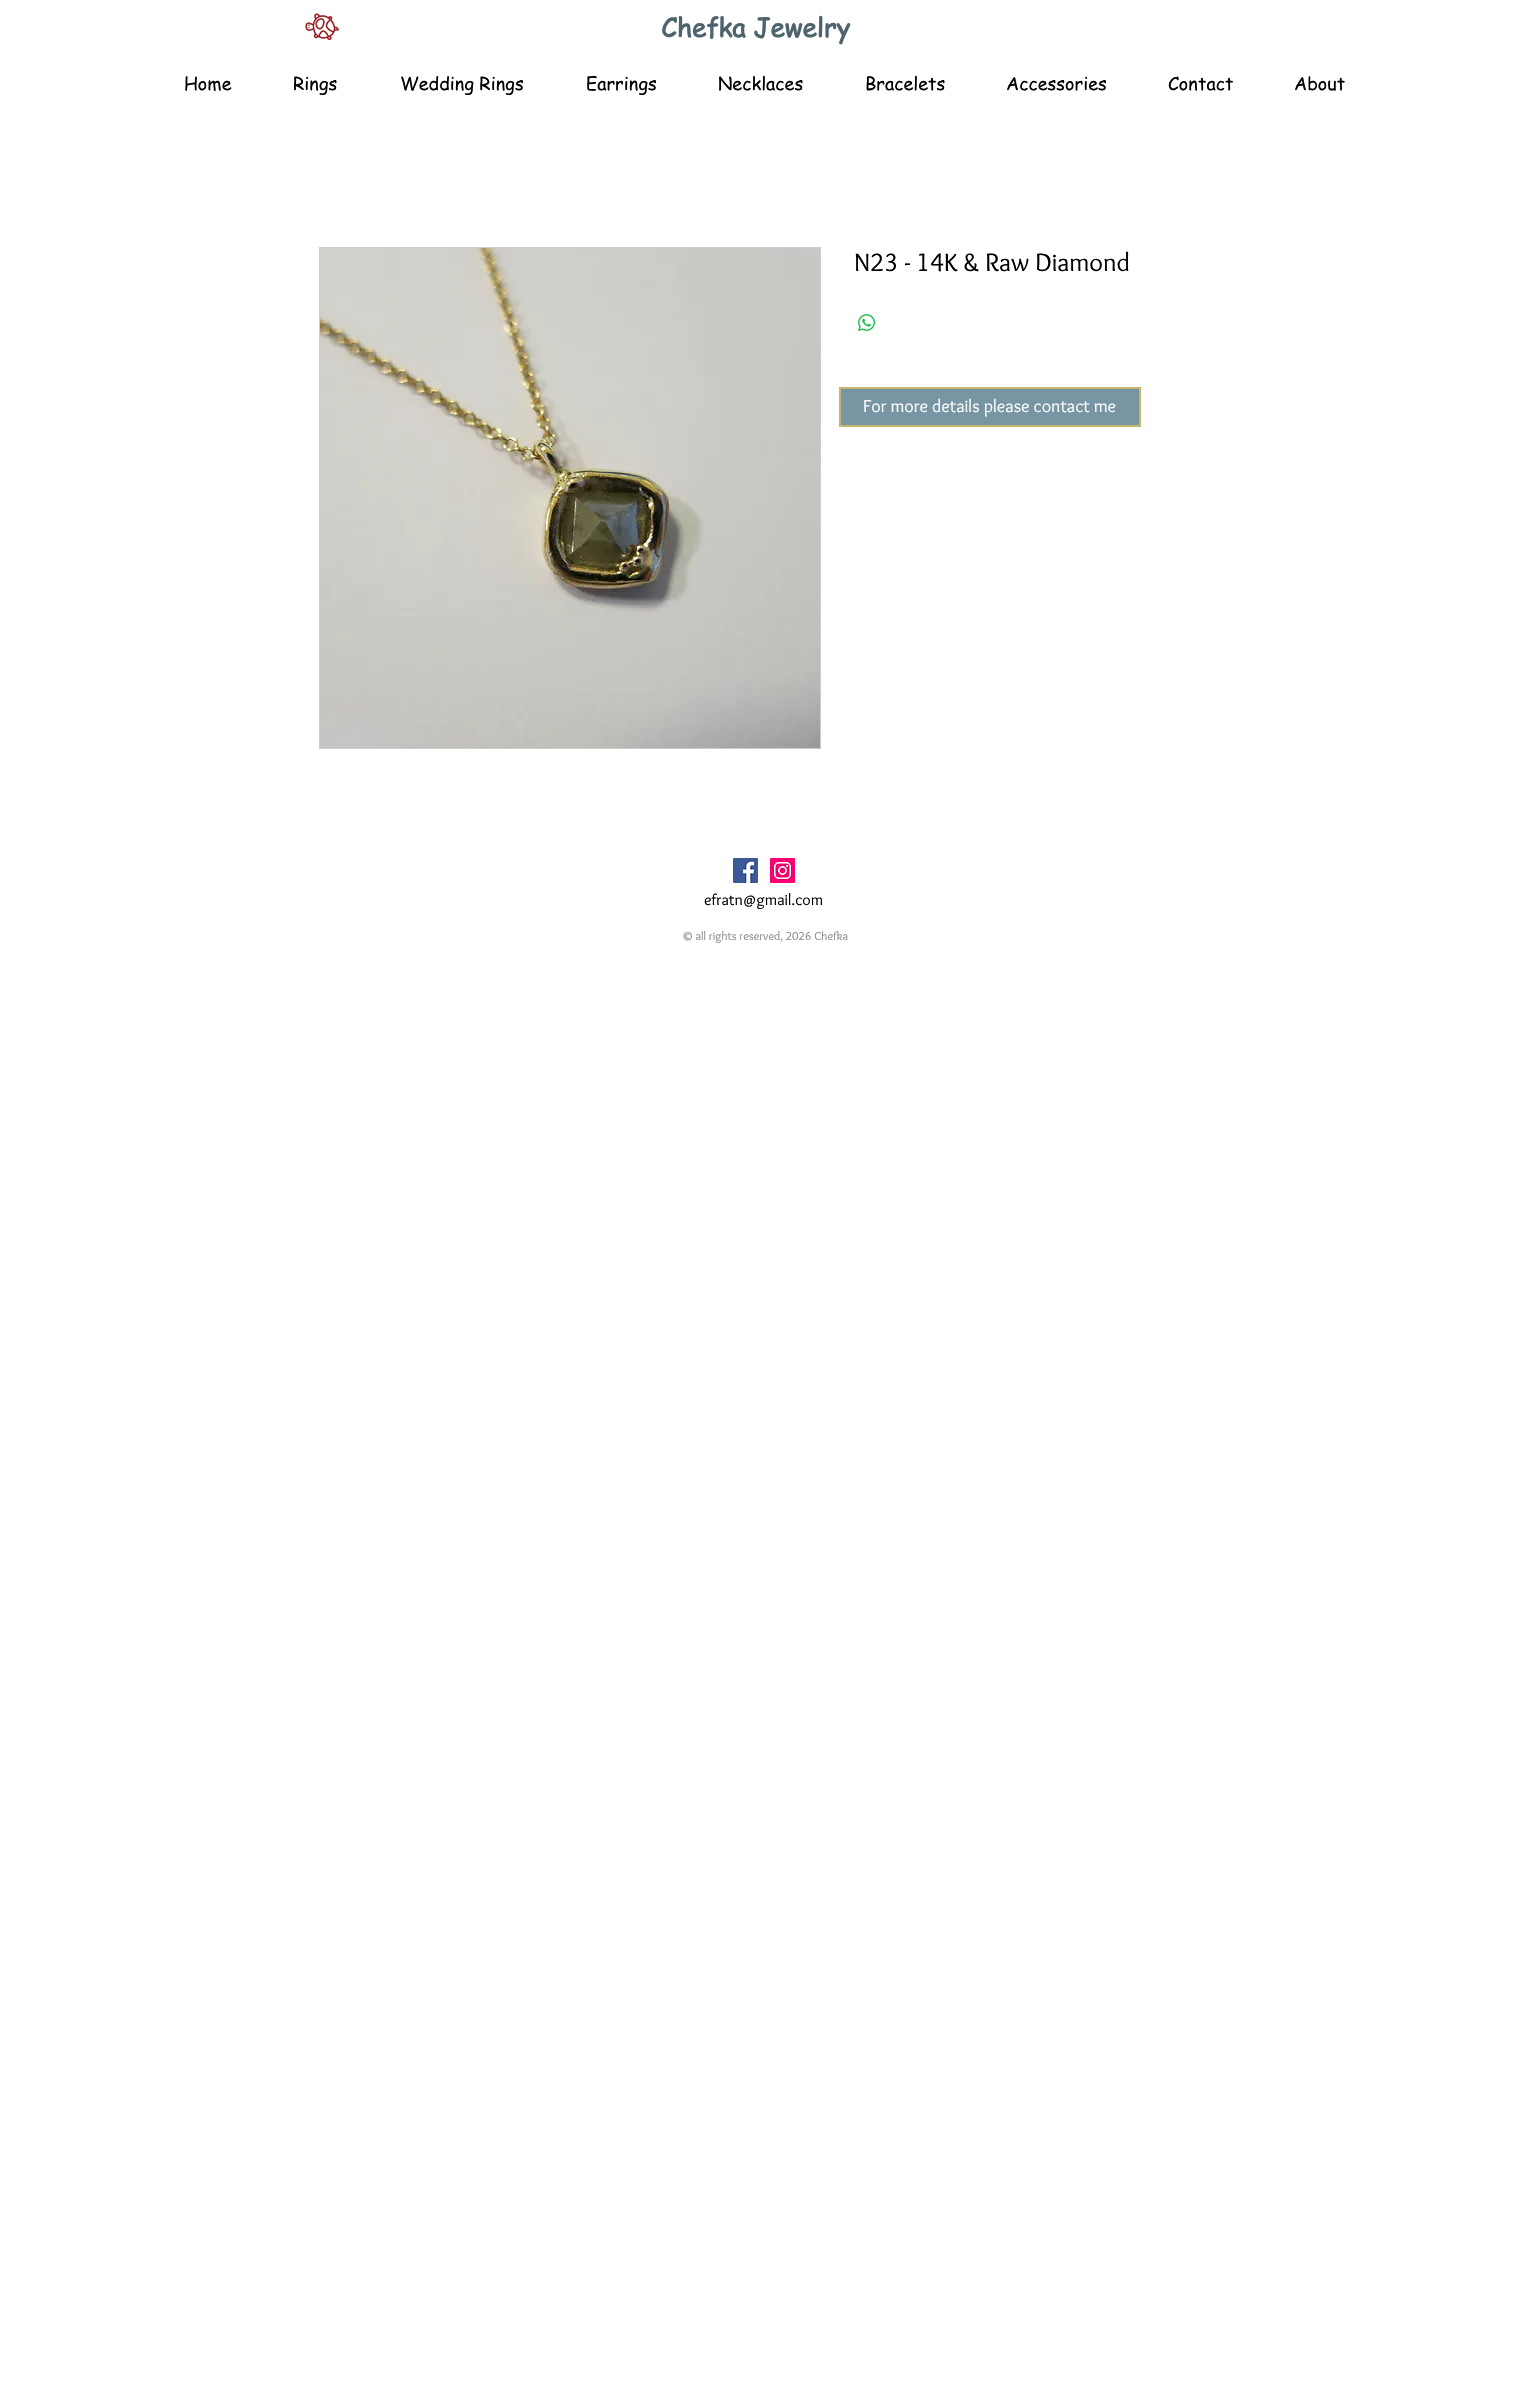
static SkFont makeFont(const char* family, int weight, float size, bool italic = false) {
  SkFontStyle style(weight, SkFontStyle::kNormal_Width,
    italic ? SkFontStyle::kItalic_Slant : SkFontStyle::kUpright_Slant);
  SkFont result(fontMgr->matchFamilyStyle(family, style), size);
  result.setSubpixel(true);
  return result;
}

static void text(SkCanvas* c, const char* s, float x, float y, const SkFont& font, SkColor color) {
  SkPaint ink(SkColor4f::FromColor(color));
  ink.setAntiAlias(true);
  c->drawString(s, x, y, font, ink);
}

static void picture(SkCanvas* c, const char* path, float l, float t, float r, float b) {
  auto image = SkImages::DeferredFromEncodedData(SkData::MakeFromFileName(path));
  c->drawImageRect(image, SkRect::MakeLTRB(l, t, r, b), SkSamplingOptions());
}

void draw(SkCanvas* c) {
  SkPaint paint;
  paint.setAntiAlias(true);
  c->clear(0xffffffff);
  picture(c, "img_01.png", 305, 13, 339, 40);
  SkFont face1 = makeFont("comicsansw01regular", 700, 26);
  text(c, "Chefka Jewelry", 661, 37, face1, 0xff4f636d);
  SkFont face2 = makeFont("comicsansw01regular", 400, 18);
  text(c, "Home", 184, 90, face2, 0xff000000);
  text(c, "Rings", 293, 90, face2, 0xff000000);
  text(c, "Wedding Rings", 400, 90, face2, 0xff000000);
  text(c, "Earrings", 586, 90, face2, 0xff000000);
  text(c, "Necklaces", 718, 90, face2, 0xff000000);
  text(c, "Bracelets", 865, 90, face2, 0xff000000);
  text(c, "Accessories", 1006, 90, face2, 0xff000000);
  text(c, "Contact", 1168, 90, face2, 0xff000000);
  text(c, "About", 1294, 90, face2, 0xff000000);
  paint.setStyle(SkPaint::kStroke_Style);
  paint.setStrokeWidth(1);
  paint.setColor(0xffcccccc);
  c->drawRect(SkRect::MakeLTRB(319.5f, 247.5f, 820.5f, 748.5f), paint);
  picture(c, "img_02.png", 320, 248, 820, 748);
  SkFont face3 = makeFont("Overlock", 400, 26);
  text(c, "N23 - 14K & Raw Diamond", 854, 271, face3, 0xff000000);
  picture(c, "img_03.png", 858, 314, 875, 331);
  paint.setStyle(SkPaint::kFill_Style);
  paint.setColor(0xff7795a3);
  c->drawRect(SkRect::MakeLTRB(840, 388, 1140, 426), paint);
  paint.setStyle(SkPaint::kStroke_Style);
  paint.setStrokeWidth(2);
  paint.setColor(0xffc7b56f);
  c->drawRect(SkRect::MakeLTRB(840, 388, 1140, 426), paint);
  SkFont face4 = makeFont("Overlock", 400, 18);
  text(c, "For more details please contact me", 863, 412, face4, 0xffffffff);
  picture(c, "img_04.png", 733, 858, 758, 883);
  picture(c, "img_05.png", 770, 858, 795, 883);
  SkFont face5 = makeFont("Overlock", 400, 16);
  text(c, "efratn@gmail.com", 704, 905, face5, 0xff000000);
  SkFont face6 = makeFont("Overlock", 400, 12);
  text(c, "© all rights reserved, 2026 Chefka", 682, 940, face6, 0xff8b8a8a);
}
